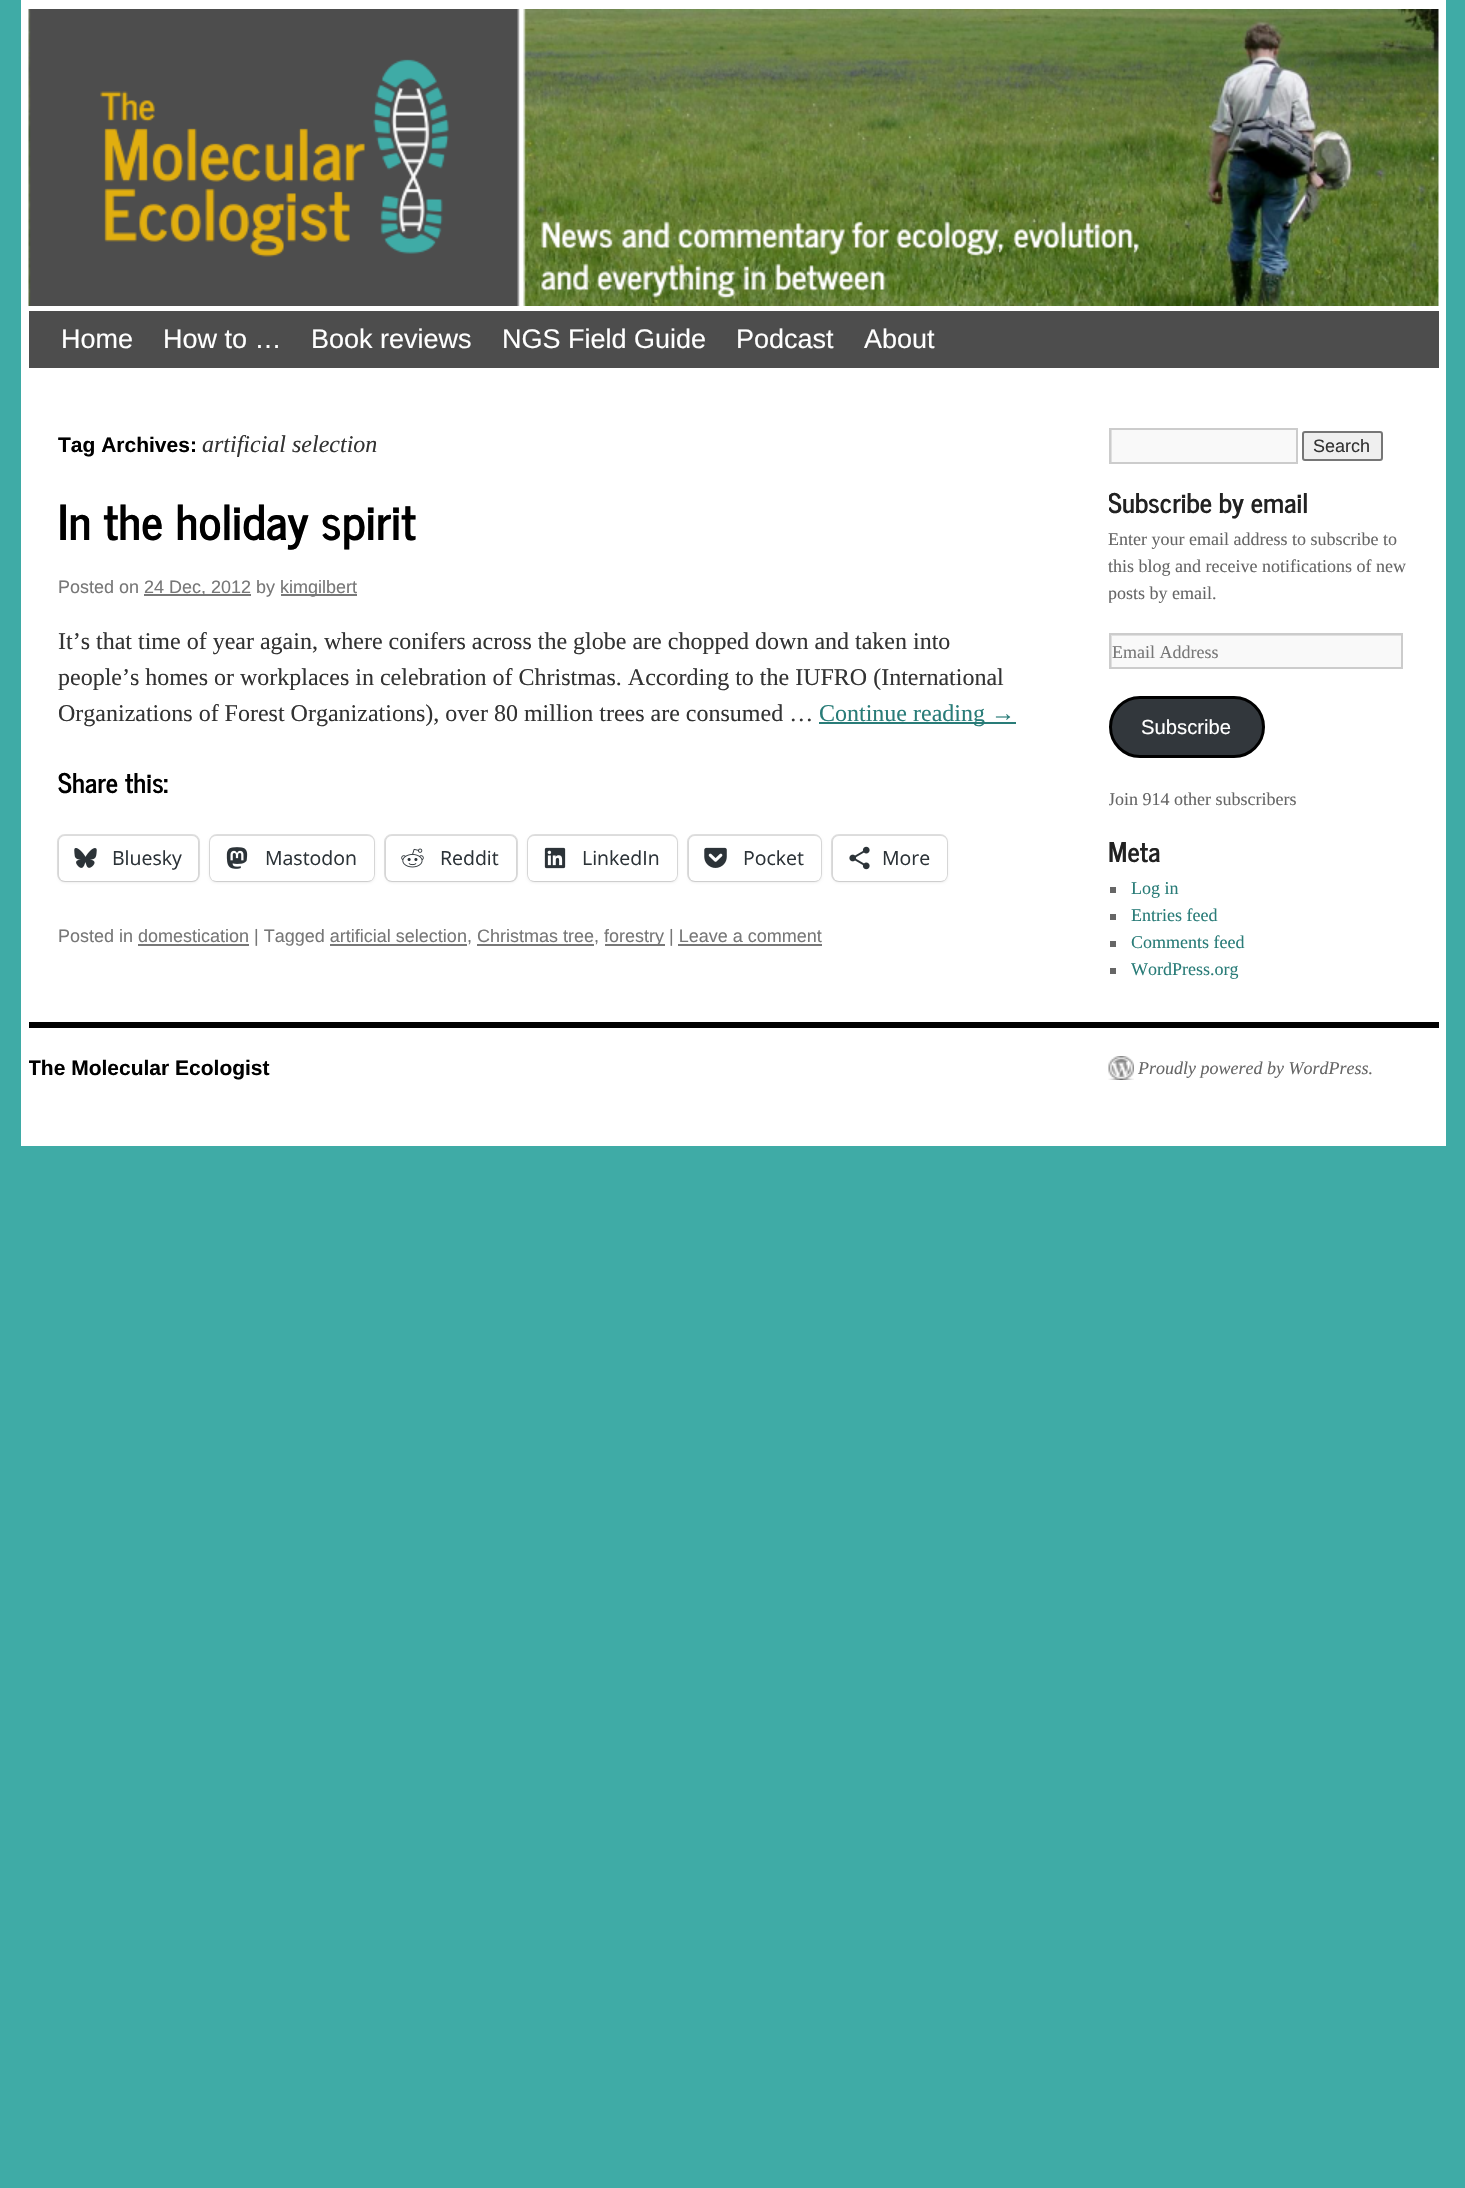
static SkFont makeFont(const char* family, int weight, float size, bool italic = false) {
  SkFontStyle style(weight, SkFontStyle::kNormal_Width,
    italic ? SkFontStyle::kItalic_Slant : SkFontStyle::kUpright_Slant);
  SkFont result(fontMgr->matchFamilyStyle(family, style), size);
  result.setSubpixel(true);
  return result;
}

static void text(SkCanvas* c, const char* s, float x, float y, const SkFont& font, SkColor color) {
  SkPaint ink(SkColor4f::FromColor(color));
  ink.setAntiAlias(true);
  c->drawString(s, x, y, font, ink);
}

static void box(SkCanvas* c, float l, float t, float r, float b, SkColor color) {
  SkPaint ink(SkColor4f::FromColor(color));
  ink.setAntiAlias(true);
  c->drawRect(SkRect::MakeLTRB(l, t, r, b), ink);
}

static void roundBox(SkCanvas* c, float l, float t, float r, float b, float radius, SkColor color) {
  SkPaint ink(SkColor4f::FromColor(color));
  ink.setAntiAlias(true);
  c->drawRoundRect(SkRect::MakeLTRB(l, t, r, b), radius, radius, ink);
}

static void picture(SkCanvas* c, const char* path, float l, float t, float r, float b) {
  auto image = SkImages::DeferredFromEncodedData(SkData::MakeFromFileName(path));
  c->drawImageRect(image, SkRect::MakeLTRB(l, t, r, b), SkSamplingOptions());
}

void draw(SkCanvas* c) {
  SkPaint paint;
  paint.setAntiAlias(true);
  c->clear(0xff3faba6);
  box(c, 21, 0, 1446, 1146, 0xffffffff);
  picture(c, "img_01.png", 28, 9, 1439, 306);
  box(c, 29, 311, 1439, 368, 0xff4d4d4d);
  SkFont face1 = makeFont("Liberation Sans", 400, 27);
  text(c, "Home", 61, 348, face1, 0xffffffff);
  text(c, "How to …", 163, 348, face1, 0xffffffff);
  text(c, "Book reviews", 311, 348, face1, 0xffffffff);
  text(c, "NGS Field Guide", 502, 348, face1, 0xffffffff);
  text(c, "Podcast", 736, 348, face1, 0xffffffff);
  text(c, "About", 864, 348, face1, 0xffffffff);
  SkFont face2 = makeFont("Liberation Sans", 700, 21);
  text(c, "Tag Archives:", 58, 452, face2, 0xff000000);
  SkFont face3 = makeFont("Liberation Serif", 400, 24, true);
  text(c, "artificial selection", 202, 452, face3, 0xff333333);
  SkFont face4 = makeFont("News Cycle", 700, 48);
  text(c, "In the holiday spirit", 58, 540, face4, 0xff000000);
  SkFont face5 = makeFont("Liberation Sans", 400, 18);
  text(c, "Posted on", 58, 593, face5, 0xff777777);
  box(c, 144, 594, 251, 596, 0xff777777);
  text(c, "24 Dec, 2012 by", 144, 593, face5, 0xff777777);
  box(c, 281, 594, 357, 596, 0xff777777);
  text(c, "kimgilbert", 280, 593, face5, 0xff777777);
  SkFont face6 = makeFont("Liberation Serif", 400, 24);
  text(c, "It’s that time of year again, where conifers across the globe are chopped down and taken into", 58, 649, face6, 0xff333333);
  text(c, "people’s homes or workplaces in celebration of Christmas. According to the IUFRO (International", 58, 685, face6, 0xff333333);
  text(c, "Organizations of Forest Organizations), over 80 million trees are consumed …", 58, 721, face6, 0xff333333);
  box(c, 819, 722, 1016, 724, 0xff297c78);
  text(c, "Continue reading →", 819, 721, face6, 0xff297c78);
  SkFont face7 = makeFont("News Cycle", 700, 27);
  text(c, "Share this:", 58, 793, face7, 0xff000000);
  paint.setStyle(SkPaint::kStroke_Style);
  paint.setStrokeWidth(2);
  paint.setColor(0xffe0e0e0);
  c->drawRoundRect(SkRect::MakeLTRB(58, 835, 199, 881), 7, 7, paint);
  paint.setStyle(SkPaint::kFill_Style);
  paint.setColor(0x1f000000);
  paint.setMaskFilter(SkMaskFilter::MakeBlur(kNormal_SkBlurStyle, 1.5f));
  c->drawRoundRect(SkRect::MakeLTRB(59, 837, 198, 882), 6, 6, paint);
  paint.setMaskFilter(nullptr);
  roundBox(c, 59, 836, 198, 881, 6, 0xffffffff);
  picture(c, "img_02.png", 74, 848, 97, 868);
  SkFont face8 = makeFont("Open Sans", 400, 19.5f);
  text(c, "Bluesky", 112, 865, face8, 0xff2c3338);
  paint.setStyle(SkPaint::kStroke_Style);
  paint.setColor(0xffe0e0e0);
  c->drawRoundRect(SkRect::MakeLTRB(210, 835, 374, 881), 7, 7, paint);
  paint.setStyle(SkPaint::kFill_Style);
  paint.setColor(0x1f000000);
  paint.setMaskFilter(SkMaskFilter::MakeBlur(kNormal_SkBlurStyle, 1.5f));
  c->drawRoundRect(SkRect::MakeLTRB(210, 837, 374, 882), 6, 6, paint);
  paint.setMaskFilter(nullptr);
  roundBox(c, 210, 836, 374, 881, 6, 0xffffffff);
  picture(c, "img_03.png", 226, 847, 248, 869);
  text(c, "Mastodon", 265, 865, face8, 0xff2c3338);
  paint.setStyle(SkPaint::kStroke_Style);
  paint.setColor(0xffe0e0e0);
  c->drawRoundRect(SkRect::MakeLTRB(385, 835, 517, 881), 7, 7, paint);
  paint.setStyle(SkPaint::kFill_Style);
  paint.setColor(0x1f000000);
  paint.setMaskFilter(SkMaskFilter::MakeBlur(kNormal_SkBlurStyle, 1.5f));
  c->drawRoundRect(SkRect::MakeLTRB(386, 837, 516, 882), 6, 6, paint);
  paint.setMaskFilter(nullptr);
  roundBox(c, 386, 836, 516, 881, 6, 0xffffffff);
  picture(c, "img_04.png", 401, 848, 424, 868);
  text(c, "Reddit", 440, 865, face8, 0xff2c3338);
  paint.setStyle(SkPaint::kStroke_Style);
  paint.setColor(0xffe0e0e0);
  c->drawRoundRect(SkRect::MakeLTRB(528, 835, 677, 881), 7, 7, paint);
  paint.setStyle(SkPaint::kFill_Style);
  paint.setColor(0x1f000000);
  paint.setMaskFilter(SkMaskFilter::MakeBlur(kNormal_SkBlurStyle, 1.5f));
  c->drawRoundRect(SkRect::MakeLTRB(528, 837, 677, 882), 6, 6, paint);
  paint.setMaskFilter(nullptr);
  roundBox(c, 528, 836, 677, 881, 6, 0xffffffff);
  picture(c, "img_05.png", 544, 847, 566, 869);
  text(c, "LinkedIn", 582, 865, face8, 0xff2c3338);
  paint.setStyle(SkPaint::kStroke_Style);
  paint.setColor(0xffe0e0e0);
  c->drawRoundRect(SkRect::MakeLTRB(688, 835, 821, 881), 7, 7, paint);
  paint.setStyle(SkPaint::kFill_Style);
  paint.setColor(0x1f000000);
  paint.setMaskFilter(SkMaskFilter::MakeBlur(kNormal_SkBlurStyle, 1.5f));
  c->drawRoundRect(SkRect::MakeLTRB(689, 837, 821, 882), 6, 6, paint);
  paint.setMaskFilter(nullptr);
  roundBox(c, 689, 836, 821, 881, 6, 0xffffffff);
  picture(c, "img_06.png", 704, 847, 727, 868);
  text(c, "Pocket", 743, 865, face8, 0xff2c3338);
  paint.setStyle(SkPaint::kStroke_Style);
  paint.setColor(0xffe0e0e0);
  c->drawRoundRect(SkRect::MakeLTRB(832, 835, 947, 881), 7, 7, paint);
  paint.setStyle(SkPaint::kFill_Style);
  paint.setColor(0x1f000000);
  paint.setMaskFilter(SkMaskFilter::MakeBlur(kNormal_SkBlurStyle, 1.5f));
  c->drawRoundRect(SkRect::MakeLTRB(833, 837, 947, 882), 6, 6, paint);
  paint.setMaskFilter(nullptr);
  roundBox(c, 833, 836, 947, 881, 6, 0xffffffff);
  picture(c, "img_07.png", 849, 846, 870, 870);
  text(c, "More", 882, 865, face8, 0xff2c3338);
  text(c, "Posted in domestication | Tagged artificial selection, Christmas tree,", 58, 942, face5, 0xff777777);
  box(c, 138, 944, 249, 946, 0xff777777);
  box(c, 605, 944, 665, 946, 0xff777777);
  text(c, "forestry | Leave a comment", 604, 942, face5, 0xff777777);
  box(c, 330, 944, 467, 946, 0xff777777);
  box(c, 477, 944, 594, 946, 0xff777777);
  box(c, 678, 944, 822, 946, 0xff777777);
  box(c, 1112, 430, 1296, 462, 0xfff9f9f9);
  c->save();
  c->clipRect(SkRect::MakeLTRB(1110, 429, 1296, 462));
  paint.setColor(0xffe0e0e0);
  c->drawPath(SkPathBuilder(SkPathFillType::kEvenOdd).moveTo(962, 280).lineTo(1444, 280).lineTo(1444, 610).lineTo(962, 610).close().moveTo(1112, 430).lineTo(1298, 430).lineTo(1298, 464).lineTo(1112, 464).close().detach(), paint);
  c->restore();
  paint.setStyle(SkPaint::kStroke_Style);
  paint.setColor(0xffcccccc);
  c->drawRect(SkRect::MakeLTRB(1110, 429, 1297, 463), paint);
  paint.setStyle(SkPaint::kFill_Style);
  paint.setColor(0xffefefef);
  c->drawRoundRect(SkRect::MakeLTRB(1303, 432, 1382, 460), 2, 2, paint);
  paint.setStyle(SkPaint::kStroke_Style);
  paint.setColor(0xff767676);
  c->drawRoundRect(SkRect::MakeLTRB(1303, 432, 1382, 460), 2, 2, paint);
  text(c, "Search", 1313, 452, face5, 0xff333333);
  c->save();
  c->clipRect(SkRect::MakeLTRB(1109, 428, 1439, 1010));
  text(c, "Subscribe by email", 1108, 513, face7, 0xff222222);
  c->restore();
  SkFont face9 = makeFont("Liberation Serif", 400, 18);
  text(c, "Enter your email address to subscribe to", 1108, 545, face9, 0xff666666);
  text(c, "this blog and receive notifications of new", 1108, 572, face9, 0xff666666);
  c->save();
  c->clipRect(SkRect::MakeLTRB(1109, 428, 1439, 1010));
  text(c, "posts by email.", 1108, 599, face9, 0xff666666);
  c->restore();
  box(c, 1112, 636, 1401, 667, 0xfff9f9f9);
  c->save();
  c->clipRect(SkRect::MakeLTRB(1110, 635, 1401, 668));
  paint.setStyle(SkPaint::kFill_Style);
  paint.setColor(0xffe0e0e0);
  c->drawPath(SkPathBuilder(SkPathFillType::kEvenOdd).moveTo(962, 486).lineTo(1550, 486).lineTo(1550, 816).lineTo(962, 816).close().moveTo(1112, 636).lineTo(1402, 636).lineTo(1402, 669).lineTo(1112, 669).close().detach(), paint);
  c->restore();
  paint.setStyle(SkPaint::kStroke_Style);
  paint.setColor(0xffcccccc);
  c->drawRect(SkRect::MakeLTRB(1110, 634, 1402, 668), paint);
  text(c, "Email Address", 1112, 658, face9, 0xff777777);
  paint.setStyle(SkPaint::kFill_Style);
  paint.setColor(0xff32373c);
  c->drawRoundRect(SkRect::MakeLTRB(1110.5f, 697.5f, 1263.5f, 756.5f), 29.5f, 29.5f, paint);
  paint.setStyle(SkPaint::kStroke_Style);
  paint.setStrokeWidth(3);
  paint.setColor(0xff000000);
  c->drawRoundRect(SkRect::MakeLTRB(1110.5f, 697.5f, 1263.5f, 756.5f), 29.5f, 29.5f, paint);
  SkFont face10 = makeFont("Liberation Sans", 400, 20.25f);
  text(c, "Subscribe", 1141, 734, face10, 0xffffffff);
  c->save();
  c->clipRect(SkRect::MakeLTRB(1109, 428, 1439, 1010));
  text(c, "Join 914 other subscribers", 1108, 805, face9, 0xff666666);
  c->restore();
  text(c, "Meta", 1108, 862, face7, 0xff222222);
  box(c, 1110, 887, 1116, 893, 0xff666666);
  text(c, "Log in", 1131, 894, face9, 0xff297c78);
  box(c, 1110, 914, 1116, 920, 0xff666666);
  text(c, "Entries feed", 1131, 921, face9, 0xff297c78);
  box(c, 1110, 941, 1116, 947, 0xff666666);
  text(c, "Comments feed", 1131, 948, face9, 0xff297c78);
  box(c, 1110, 968, 1116, 974, 0xff666666);
  text(c, "WordPress.org", 1131, 975, face9, 0xff297c78);
  box(c, 29, 1022, 1439, 1028, 0xff000000);
  c->save();
  c->clipRect(SkRect::MakeLTRB(29, 1028, 1439, 1109));
  text(c, "The Molecular Ecologist", 28, 1075, face2, 0xff000000);
  c->restore();
  picture(c, "img_08.png", 1108, 1056, 1134, 1080);
  SkFont face11 = makeFont("Liberation Serif", 400, 18, true);
  text(c, "Proudly powered by WordPress.", 1138, 1074, face11, 0xff666666);
}
